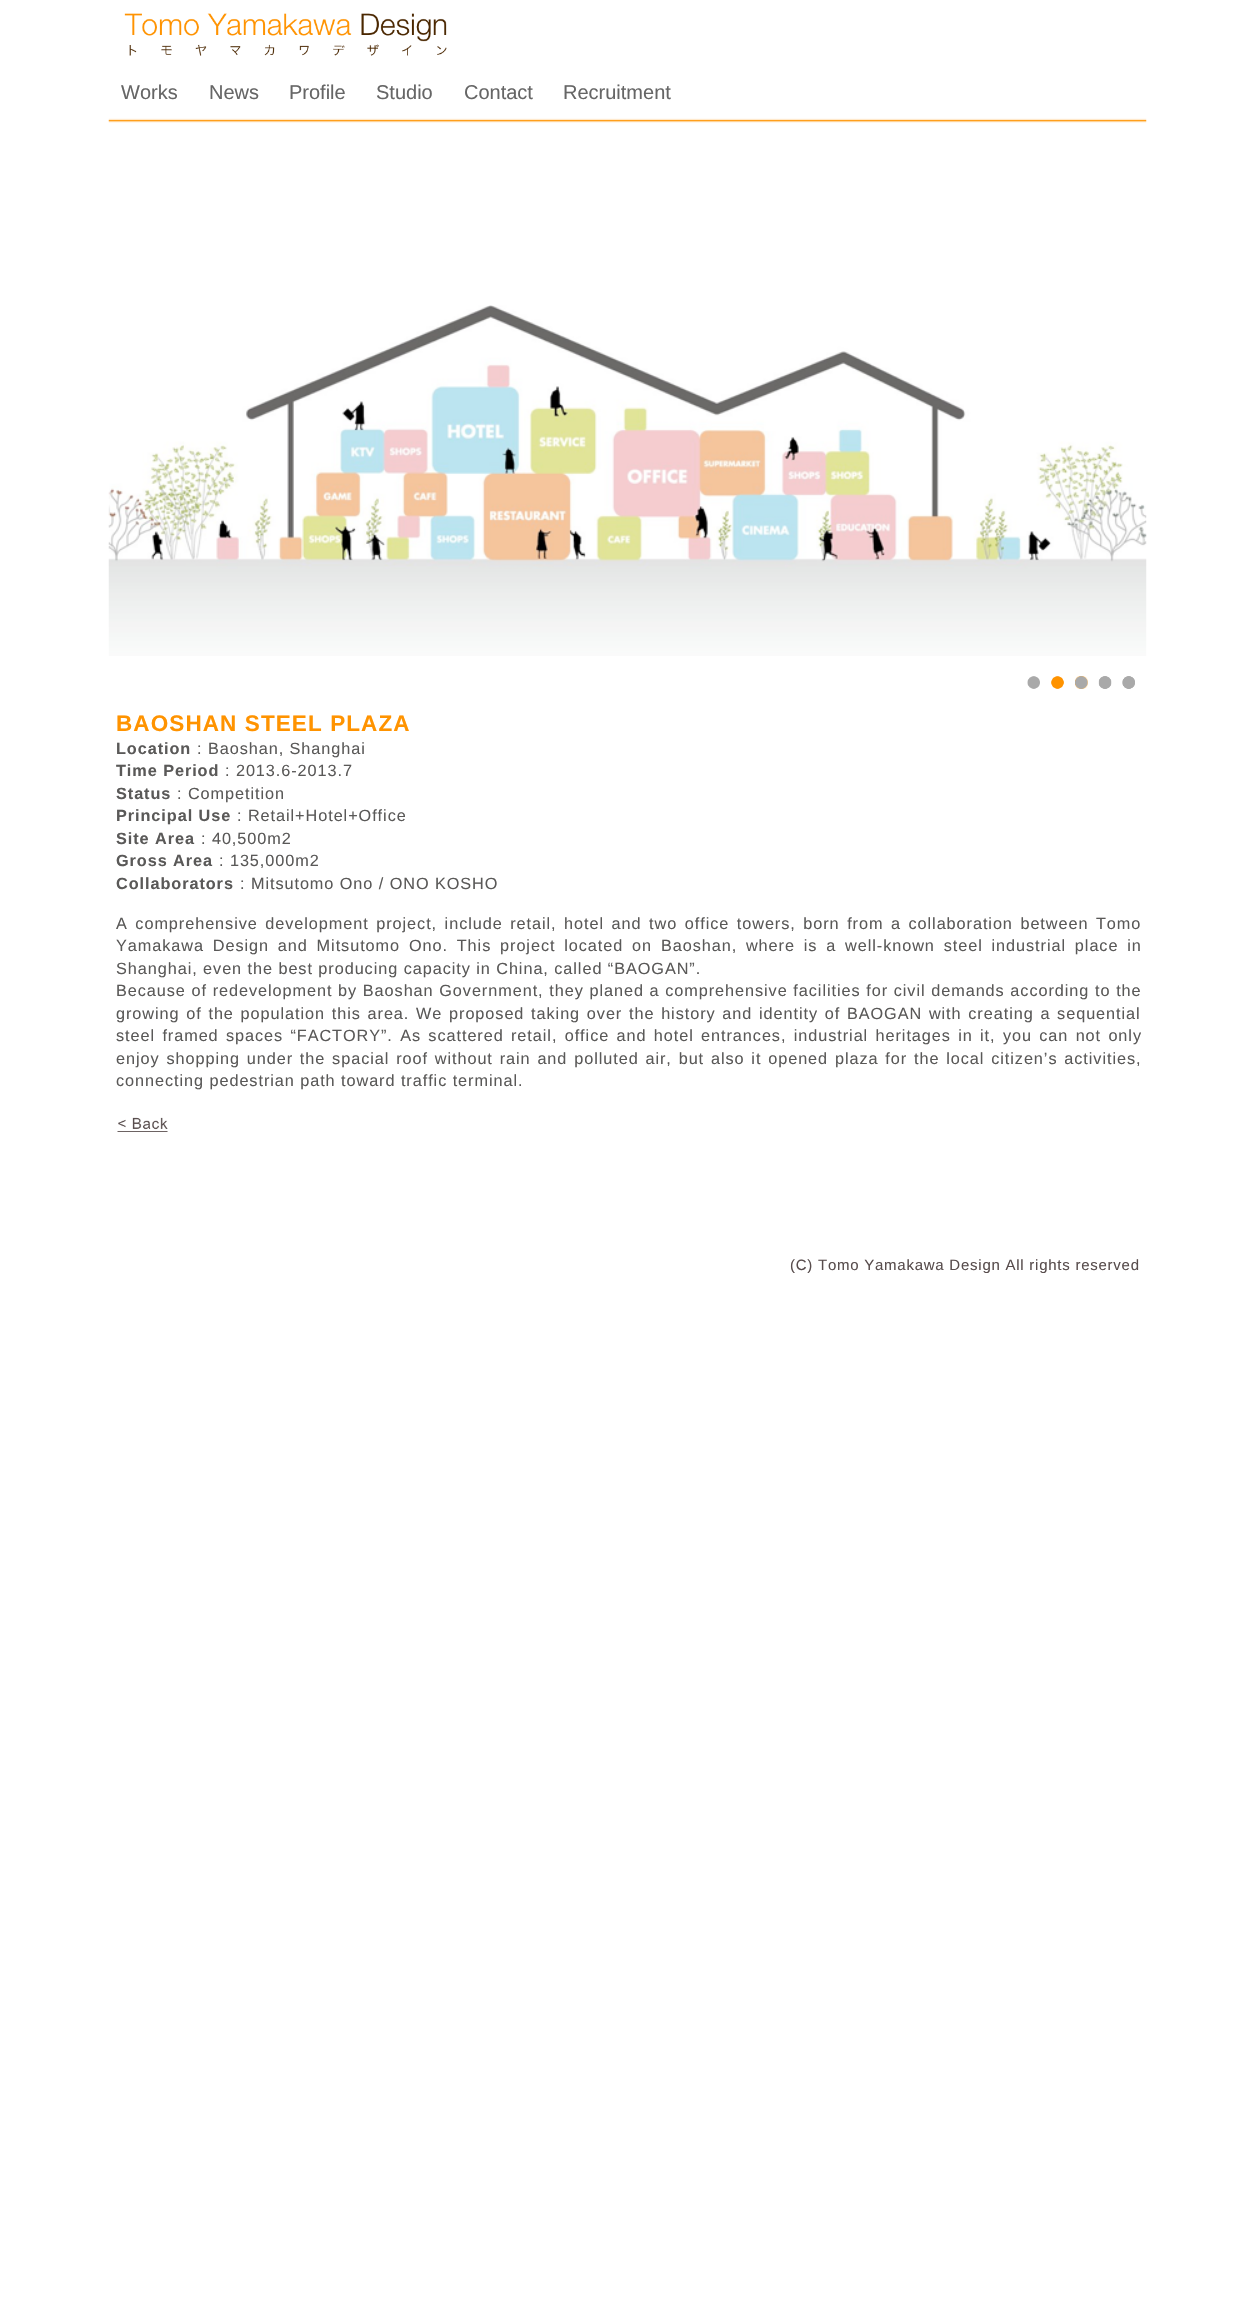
static SkFont makeFont(const char* family, int weight, float size, bool italic = false) {
  SkFontStyle style(weight, SkFontStyle::kNormal_Width,
    italic ? SkFontStyle::kItalic_Slant : SkFontStyle::kUpright_Slant);
  SkFont result(fontMgr->matchFamilyStyle(family, style), size);
  result.setSubpixel(true);
  return result;
}

static void text(SkCanvas* c, const char* s, float x, float y, const SkFont& font, SkColor color) {
  SkPaint ink(SkColor4f::FromColor(color));
  ink.setAntiAlias(true);
  c->drawString(s, x, y, font, ink);
}

static void spacedText(SkCanvas* c, const char* s, float x, float y, const SkFont& font, const SkPaint& ink, float letter, float word) {
  std::vector<SkGlyphID> glyphs(font.countText(s, strlen(s), SkTextEncoding::kUTF8));
  std::vector<float> xs(glyphs.size());
  font.textToGlyphs(s, strlen(s), SkTextEncoding::kUTF8, glyphs);
  font.getXPos(glyphs, xs, x);
  float extra = 0;
  for (size_t i = 0; i < glyphs.size(); i++) {
    xs[i] += extra;
    extra += letter + word * (glyphs[i] == font.unicharToGlyph(' '));
  }
  c->drawTextBlob(SkTextBlob::MakeFromPosHGlyphs(glyphs, xs, y, font), 0, 0, ink);
}

static void picture(SkCanvas* c, const char* path, float l, float t, float r, float b) {
  auto image = SkImages::DeferredFromEncodedData(SkData::MakeFromFileName(path));
  c->drawImageRect(image, SkRect::MakeLTRB(l, t, r, b), SkSamplingOptions());
}

void draw(SkCanvas* c) {
  SkPaint paint;
  paint.setAntiAlias(true);
  c->clear(0xffffffff);
  picture(c, "img_01.png", 124, 13, 447, 56);
  SkFont face1 = makeFont("Liberation Sans", 400, 20);
  text(c, "Works", 121, 99, face1, 0xff666666);
  text(c, "News", 209, 99, face1, 0xff666666);
  text(c, "Profile", 289, 99, face1, 0xff666666);
  text(c, "Studio", 376, 99, face1, 0xff666666);
  text(c, "Contact", 464, 99, face1, 0xff666666);
  text(c, "Recruitment", 563, 99, face1, 0xff666666);
  picture(c, "img_02.png", 108, 118, 1147, 123);
  picture(c, "img_03.png", 108, 305, 1147, 656);
  picture(c, "img_04.png", 1027, 676, 1040, 689);
  picture(c, "img_05.png", 1051, 676, 1064, 689);
  picture(c, "img_06.png", 1075, 676, 1088, 689);
  picture(c, "img_07.png", 1075, 676, 1088, 689);
  picture(c, "img_08.png", 1098, 676, 1112, 689);
  picture(c, "img_09.png", 1098, 676, 1112, 689);
  picture(c, "img_10.png", 1122, 676, 1135, 689);
  picture(c, "img_11.png", 1122, 676, 1135, 689);
  SkFont face2 = makeFont("Liberation Sans", 700, 22.5f);
  paint.setColor(0xffff9300);
  spacedText(c, "BAOSHAN STEEL PLAZA", 116, 731, face2, paint, 1.1f, 0);
  SkFont face3 = makeFont("Liberation Sans", 700, 16.25f);
  paint.setColor(0xff5a5958);
  spacedText(c, "Location", 116, 754, face3, paint, 0.94f, 0);
  SkFont face4 = makeFont("Liberation Sans", 400, 16.25f);
  spacedText(c, ": Baoshan, Shanghai", 197, 754, face4, paint, 0.94f, 0);
  spacedText(c, "Time Period", 116, 776, face3, paint, 0.94f, 0);
  spacedText(c, ": 2013.6-2013.7", 225, 776, face4, paint, 0.94f, 0);
  spacedText(c, "Status", 116, 799, face3, paint, 0.94f, 0);
  spacedText(c, ": Competition", 177, 799, face4, paint, 0.94f, 0);
  spacedText(c, "Principal Use", 116, 821, face3, paint, 0.94f, 0);
  spacedText(c, ": Retail+Hotel+Office", 237, 821, face4, paint, 0.94f, 0);
  spacedText(c, "Site Area", 116, 844, face3, paint, 0.94f, 0);
  spacedText(c, ": 40,500m2", 201, 844, face4, paint, 0.94f, 0);
  spacedText(c, "Gross Area", 116, 866, face3, paint, 0.94f, 0);
  spacedText(c, ": 135,000m2", 219, 866, face4, paint, 0.94f, 0);
  spacedText(c, "Collaborators", 116, 889, face3, paint, 0.94f, 0);
  spacedText(c, ": Mitsutomo Ono / ONO KOSHO", 240, 889, face4, paint, 0.94f, 0);
  spacedText(c, "A comprehensive development project, include retail, hotel and two office towers, born from a collaboration between Tomo", 116, 929, face4, paint, 0.94f, 2.1f);
  spacedText(c, "Yamakawa Design and Mitsutomo Ono. This project located on Baoshan, where is a well-known steel industrial place in", 116, 951, face4, paint, 0.94f, 3.4f);
  spacedText(c, "Shanghai, even the best producing capacity in China, called “BAOGAN”.", 116, 974, face4, paint, 0.94f, 0);
  spacedText(c, "Because of redevelopment by Baoshan Government, they planed a comprehensive facilities for civil demands according to the", 116, 996, face4, paint, 0.94f, 0.25f);
  spacedText(c, "growing of the population this area. We proposed taking over the history and identity of BAOGAN with creating a sequential", 116, 1019, face4, paint, 0.94f, 1.3f);
  spacedText(c, "steel framed spaces “FACTORY”. As scattered retail, office and hotel entrances, industrial heritages in it, you can not only", 116, 1041, face4, paint, 0.94f, 1.9f);
  spacedText(c, "enjoy shopping under the spacial roof without rain and polluted air, but also it opened plaza for the local citizen’s activities,", 116, 1064, face4, paint, 0.94f, 1.4f);
  spacedText(c, "connecting pedestrian path toward traffic terminal.", 116, 1086, face4, paint, 0.94f, 0);
  picture(c, "img_12.png", 117, 1117, 168, 1132);
  SkFont face5 = makeFont("Liberation Sans", 400, 15);
  paint.setColor(0xff584d4d);
  spacedText(c, "(C) Tomo Yamakawa Design All rights reserved", 790, 1270, face5, paint, 0.75f, 0);
}
